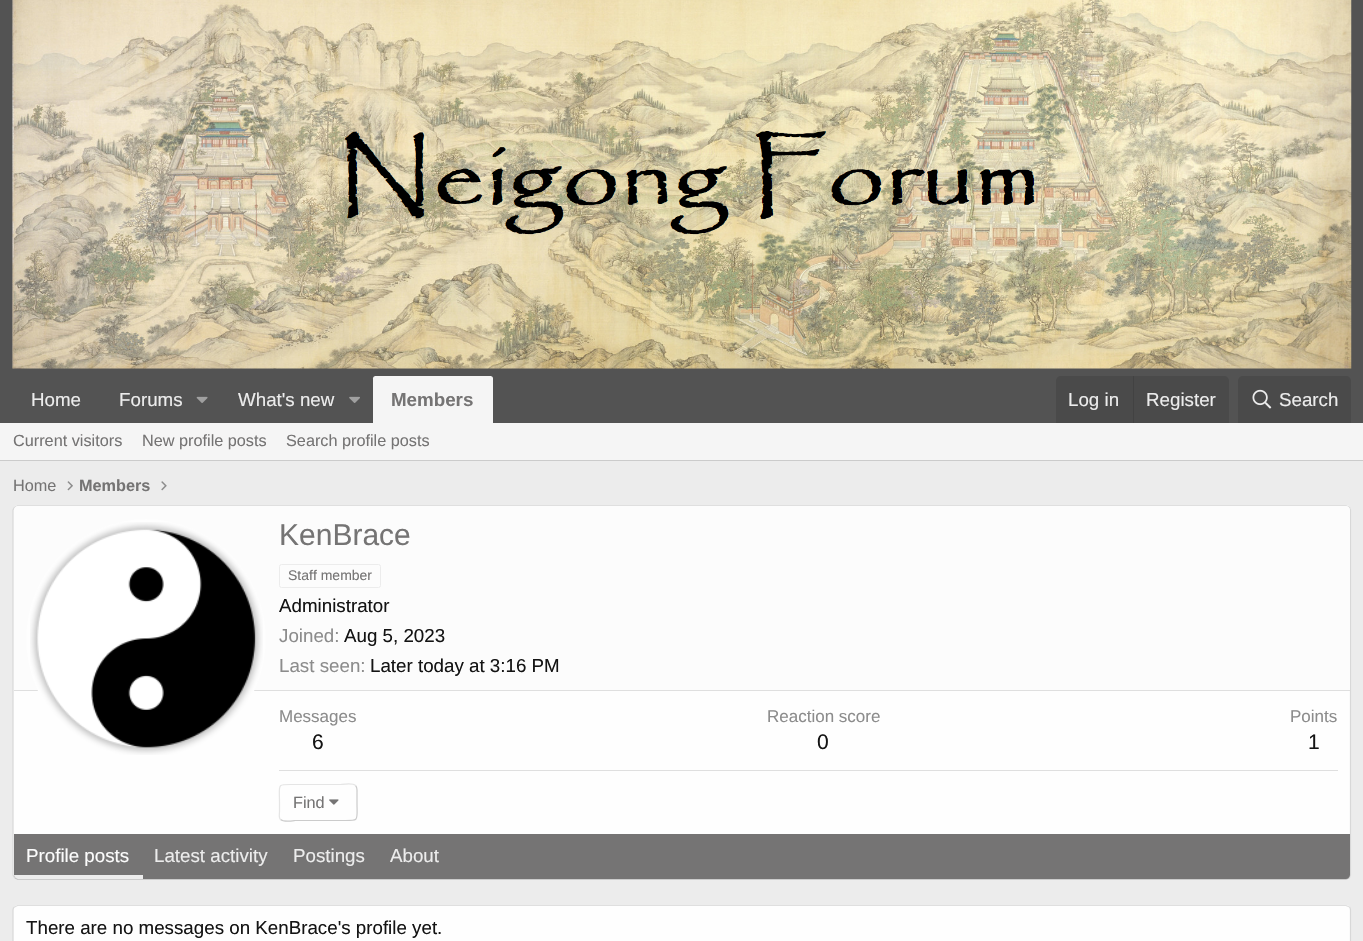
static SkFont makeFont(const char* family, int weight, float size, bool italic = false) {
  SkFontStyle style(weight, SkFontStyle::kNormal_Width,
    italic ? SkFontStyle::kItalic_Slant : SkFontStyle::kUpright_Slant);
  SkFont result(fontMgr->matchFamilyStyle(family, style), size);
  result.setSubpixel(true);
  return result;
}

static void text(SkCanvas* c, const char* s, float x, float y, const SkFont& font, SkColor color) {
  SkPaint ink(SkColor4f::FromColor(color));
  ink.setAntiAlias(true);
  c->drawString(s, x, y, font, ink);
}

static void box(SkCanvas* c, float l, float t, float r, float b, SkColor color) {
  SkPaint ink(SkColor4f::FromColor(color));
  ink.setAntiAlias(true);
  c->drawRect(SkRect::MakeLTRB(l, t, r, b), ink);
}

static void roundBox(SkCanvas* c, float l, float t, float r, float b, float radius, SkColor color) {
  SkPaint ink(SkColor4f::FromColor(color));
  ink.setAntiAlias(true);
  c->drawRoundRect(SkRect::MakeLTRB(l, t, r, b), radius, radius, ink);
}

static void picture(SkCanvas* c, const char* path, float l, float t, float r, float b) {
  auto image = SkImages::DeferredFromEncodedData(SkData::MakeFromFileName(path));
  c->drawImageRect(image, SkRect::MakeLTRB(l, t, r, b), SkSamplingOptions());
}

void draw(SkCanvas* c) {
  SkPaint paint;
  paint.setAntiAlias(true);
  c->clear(0xffececec);
  box(c, 0, 0, 1363, 423, 0xff535353);
  picture(c, "img_01.png", 12, 0, 1352, 369);
  SkFont face1 = makeFont("Liberation Sans", 400, 18.75f);
  text(c, "Home", 31, 406, face1, 0xffececec);
  text(c, "Forums", 119, 406, face1, 0xffececec);
  picture(c, "img_02.png", 196, 396, 208, 403);
  text(c, "What's new", 238, 406, face1, 0xffececec);
  picture(c, "img_03.png", 349, 396, 360, 403);
  paint.setColor(0xfff5f5f5);
  c->drawPath(SkPathBuilder().moveTo(375.5f, 376).lineTo(490.5f, 376).cubicTo(492, 376, 493, 377, 493, 378.5f).lineTo(493, 423).lineTo(373, 423).lineTo(373, 378.5f).cubicTo(373, 377, 374, 376, 375.5f, 376).close().detach(), paint);
  SkFont face2 = makeFont("Liberation Sans", 700, 18.75f);
  text(c, "Members", 391, 406, face2, 0xff757474);
  paint.setColor(0xff4a4a4a);
  c->drawPath(SkPathBuilder().moveTo(1061, 376).lineTo(1224, 376).cubicTo(1227, 376, 1229, 378, 1229, 381).lineTo(1229, 423).lineTo(1056, 423).lineTo(1056, 381).cubicTo(1056, 378, 1058, 376, 1061, 376).close().detach(), paint);
  text(c, "Log in", 1068, 406, face1, 0xffececec);
  box(c, 1133, 376, 1134, 423, 0xff424242);
  text(c, "Register", 1146, 406, face1, 0xffececec);
  c->drawPath(SkPathBuilder().moveTo(1243, 376).lineTo(1346, 376).cubicTo(1349, 376, 1351, 378, 1351, 381).lineTo(1351, 423).lineTo(1238, 423).lineTo(1238, 381).cubicTo(1238, 378, 1240, 376, 1243, 376).close().detach(), paint);
  picture(c, "img_04.png", 1252, 389, 1272, 409);
  text(c, "Search", 1279, 406, face1, 0xffececec);
  box(c, 0, 423, 1363, 460, 0xfff5f5f5);
  box(c, 0, 460, 1363, 461, 0xffcbcbcb);
  SkFont face3 = makeFont("Liberation Sans", 400, 16.25f);
  text(c, "Current visitors", 13, 446, face3, 0xff757474);
  text(c, "New profile posts", 142, 446, face3, 0xff757474);
  text(c, "Search profile posts", 286, 446, face3, 0xff757474);
  text(c, "Home", 13, 491, face3, 0xff757474);
  picture(c, "img_05.png", 67, 481, 73, 491);
  SkFont face4 = makeFont("Liberation Sans", 700, 16.25f);
  text(c, "Members", 79, 491, face4, 0xff757474);
  picture(c, "img_06.png", 161, 481, 167, 491);
  roundBox(c, 13, 505, 1351, 880, 5, 0xfffefefe);
  paint.setStyle(SkPaint::kStroke_Style);
  paint.setStrokeWidth(1.2f);
  paint.setColor(0xffdfdfdf);
  c->drawPath(SkPathBuilder().moveTo(14.5f, 507).lineTo(17.5f, 505.5f).lineTo(1346, 505.5f).lineTo(1349.5f, 507).detach(), paint);
  paint.setColor(0xffd8d8d8);
  c->drawPath(SkPathBuilder().moveTo(1349.5f, 507).lineTo(1350.5f, 510).lineTo(1350.5f, 875).lineTo(1349.5f, 878).detach(), paint);
  paint.setColor(0xffcbcbcb);
  c->drawPath(SkPathBuilder().moveTo(1349.5f, 878).lineTo(1346, 879.5f).lineTo(17.5f, 879.5f).lineTo(14.5f, 878).detach(), paint);
  paint.setColor(0xffd8d8d8);
  c->drawPath(SkPathBuilder().moveTo(14.5f, 878).lineTo(13, 875).lineTo(13, 510).lineTo(14.5f, 507).detach(), paint);
  paint.setStyle(SkPaint::kFill_Style);
  paint.setColor(0xfffcfcfc);
  c->drawPath(SkPathBuilder().moveTo(18, 506).lineTo(1346, 506).cubicTo(1348, 506, 1350, 508, 1350, 510).lineTo(1350, 691).lineTo(14, 691).lineTo(14, 510).cubicTo(14, 508, 16, 506, 18, 506).close().detach(), paint);
  box(c, 14, 690, 1350, 691, 0xffdfdfdf);
  paint.setColor(0xfffefefe);
  c->drawCircle(146, 639, 120, paint);
  picture(c, "img_07.png", 30, 522, 263, 755);
  SkFont face5 = makeFont("Liberation Sans", 400, 30);
  text(c, "KenBrace", 279, 545, face5, 0xff757474);
  paint.setStyle(SkPaint::kStroke_Style);
  paint.setStrokeWidth(1);
  paint.setColor(0xffececec);
  c->drawRoundRect(SkRect::MakeLTRB(279.5f, 564.5f, 380.5f, 587.5f), 2, 2, paint);
  SkFont face6 = makeFont("Liberation Sans", 400, 14);
  text(c, "Staff member", 288, 580, face6, 0xff757474);
  text(c, "Administrator", 279, 612, face1, 0xff141414);
  text(c, "Joined:", 279, 642, face1, 0xff8c8c8c);
  text(c, "Aug 5, 2023", 344, 642, face1, 0xff141414);
  text(c, "Last seen:", 279, 672, face1, 0xff8c8c8c);
  text(c, "Later today at 3:16 PM", 370, 672, face1, 0xff141414);
  SkFont face7 = makeFont("Liberation Sans", 400, 17);
  text(c, "Messages", 279, 722, face7, 0xff8c8c8c);
  SkFont face8 = makeFont("Liberation Sans", 400, 21);
  text(c, "6", 312, 749, face8, 0xff141414);
  text(c, "Reaction score", 767, 722, face7, 0xff8c8c8c);
  text(c, "0", 817, 749, face8, 0xff141414);
  text(c, "Points", 1290, 722, face7, 0xff8c8c8c);
  text(c, "1", 1308, 749, face8, 0xff141414);
  box(c, 279, 770, 1338, 771, 0xffdfdfdf);
  paint.setStrokeWidth(1.2f);
  paint.setColor(0xffcbcbcb);
  c->drawPath(SkPathBuilder().moveTo(355.5f, 785.5f).cubicTo(357.5f, 787.5f, 357, 791, 357, 793.5f).lineTo(357, 802.5f).cubicTo(357, 822, 360, 820.5f, 341, 820.5f).lineTo(295, 820.5f).cubicTo(294.5f, 820.5f, 284, 822.5f, 280.5f, 819.5f).detach(), paint);
  paint.setColor(0xffe5e5e5);
  c->drawPath(SkPathBuilder().moveTo(280.5f, 819.5f).cubicTo(278.5f, 817.5f, 279.5f, 814, 279.5f, 811.5f).lineTo(279.5f, 802.5f).cubicTo(279.5f, 783, 276, 784.5f, 295, 784.5f).lineTo(341, 784.5f).cubicTo(341.5f, 784.5f, 352.5f, 782.5f, 355.5f, 785.5f).detach(), paint);
  text(c, "Find", 293, 808, face3, 0xff757474);
  picture(c, "img_08.png", 329, 799, 339, 805);
  paint.setStyle(SkPaint::kFill_Style);
  paint.setColor(0xff757474);
  c->drawPath(SkPathBuilder().moveTo(14, 834).lineTo(1350, 834).lineTo(1350, 875).cubicTo(1350, 877, 1348, 879, 1346, 879).lineTo(18, 879).cubicTo(16, 879, 14, 877, 14, 875).close().detach(), paint);
  paint.setColor(0xffececec);
  c->drawPath(SkPathBuilder().moveTo(14, 875).lineTo(143, 875).lineTo(143, 879).lineTo(18, 879).cubicTo(16, 879, 14, 877, 14, 875).close().detach(), paint);
  text(c, "Profile posts", 26, 862, face1, 0xfffcfcfc);
  text(c, "Latest activity", 154, 862, face1, 0xffececec);
  text(c, "Postings", 293, 862, face1, 0xffececec);
  text(c, "About", 390, 862, face1, 0xffececec);
  roundBox(c, 13, 905, 1351, 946, 5, 0xfffefefe);
  paint.setStyle(SkPaint::kStroke_Style);
  paint.setColor(0xffdfdfdf);
  c->drawPath(SkPathBuilder().moveTo(14.5f, 907).lineTo(17.5f, 905.5f).lineTo(1346, 905.5f).lineTo(1349.5f, 907).detach(), paint);
  paint.setColor(0xffd8d8d8);
  c->drawPath(SkPathBuilder().moveTo(1349.5f, 907).cubicTo(1350, 907.5f, 1350.5f, 909, 1350.5f, 910).lineTo(1350.5f, 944).cubicTo(1350.5f, 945, 1350, 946, 1349.5f, 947).detach(), paint);
  c->drawPath(SkPathBuilder().moveTo(14.5f, 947).cubicTo(13.5f, 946, 13, 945, 13, 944).lineTo(13, 910).cubicTo(13, 909, 13.5f, 907.5f, 14.5f, 907).detach(), paint);
  text(c, "There are no messages on KenBrace's profile yet.", 26, 934, face1, 0xff141414);
}
